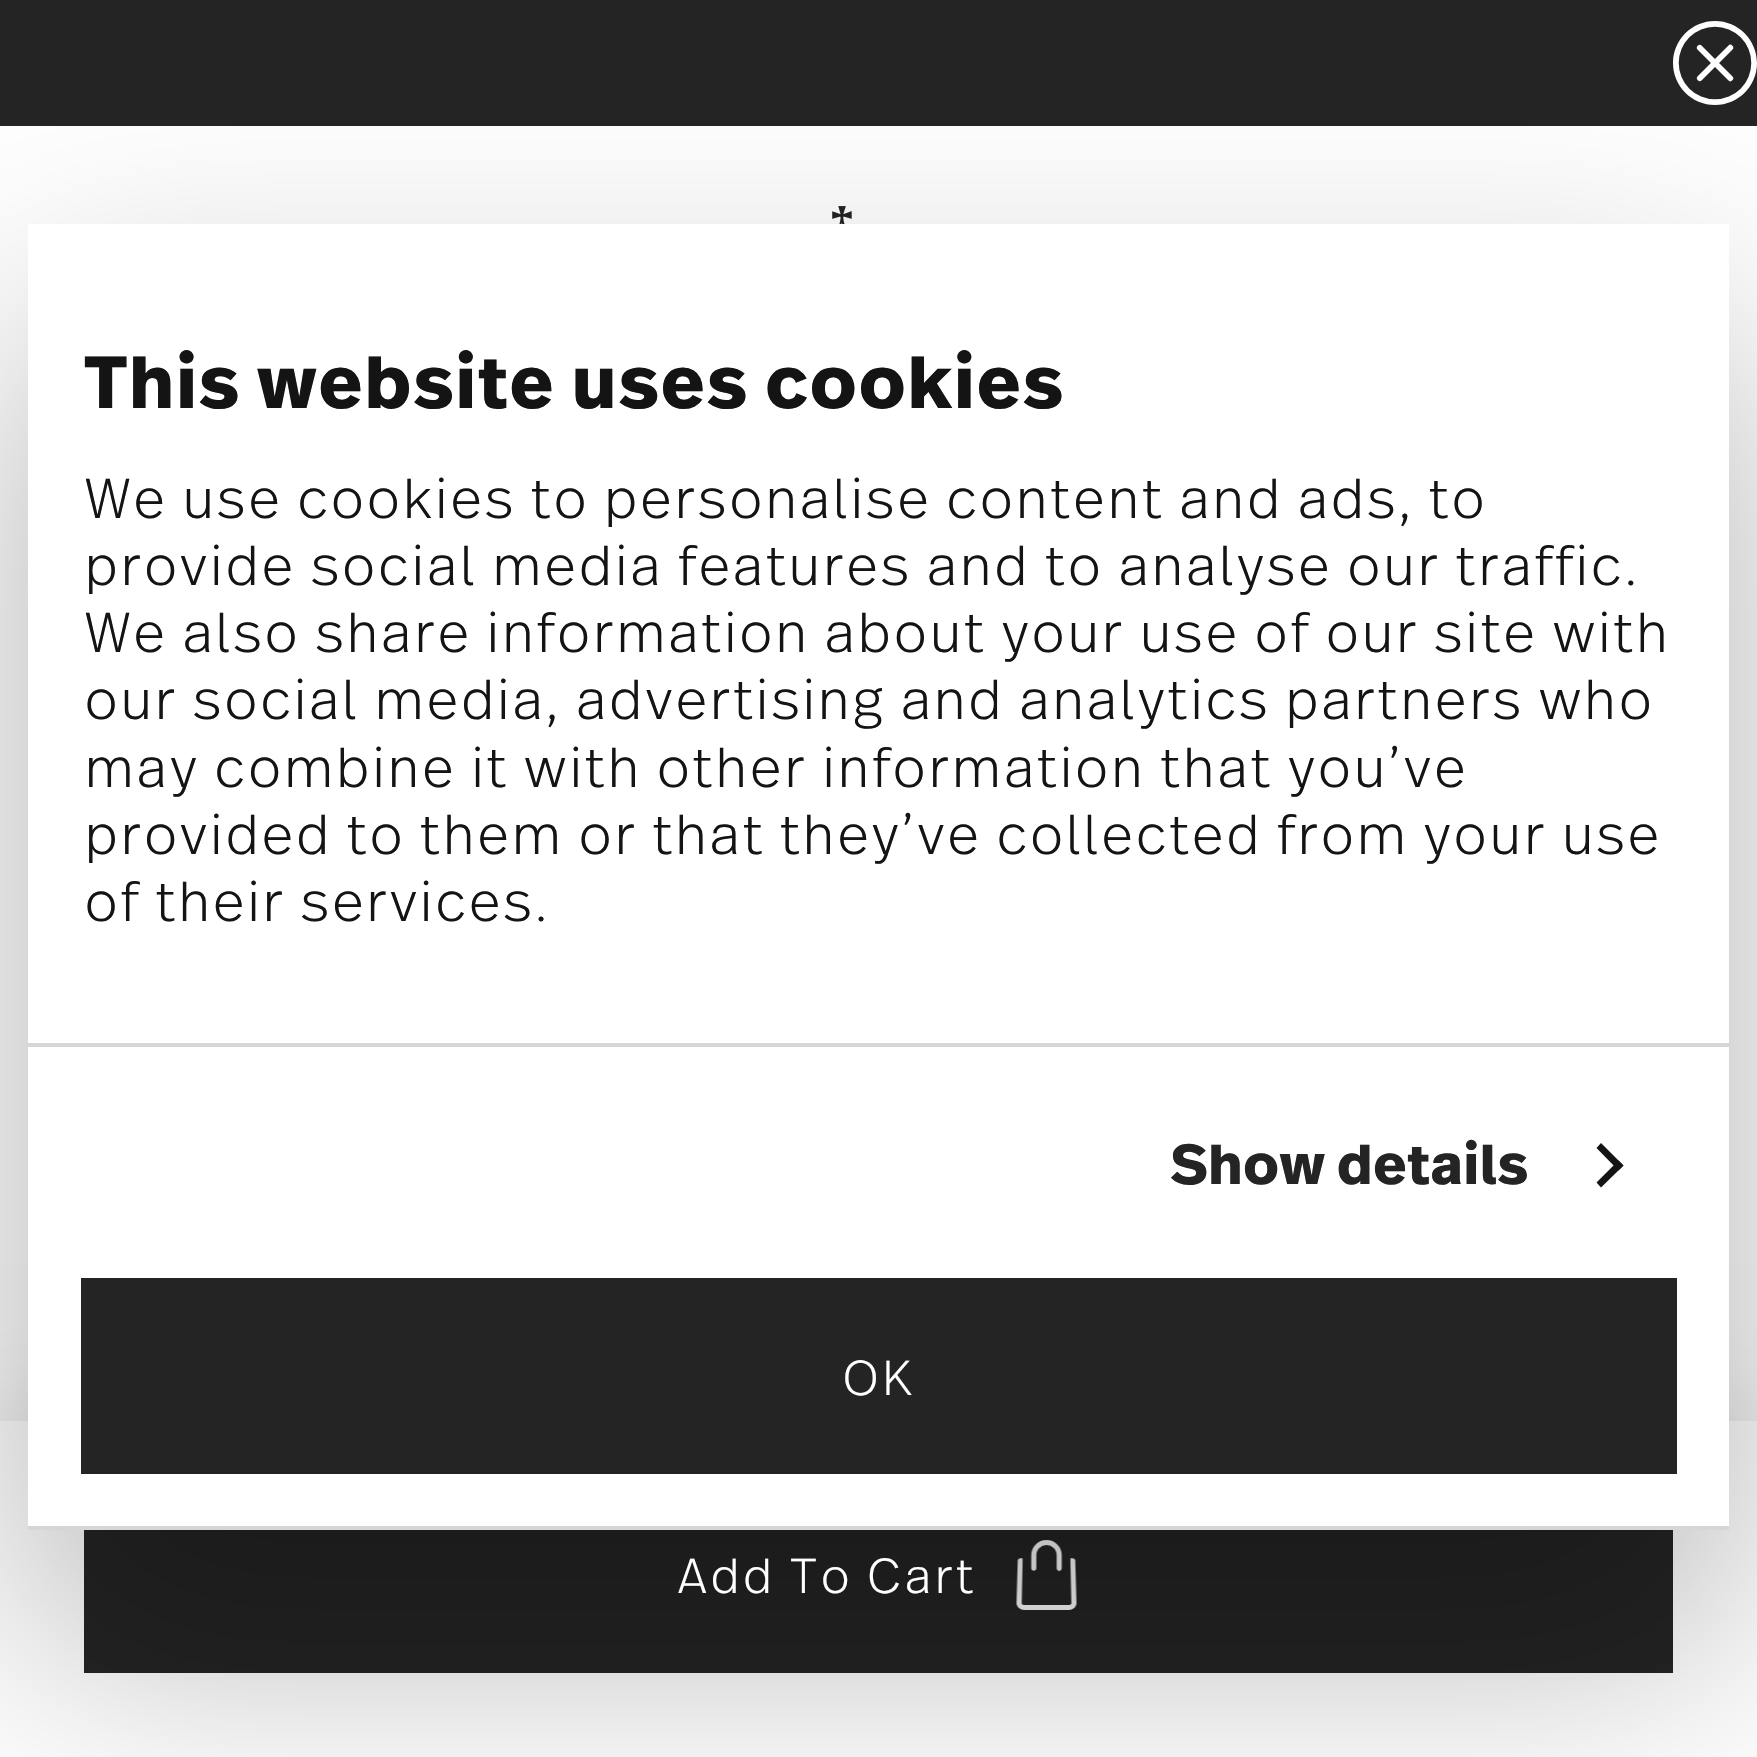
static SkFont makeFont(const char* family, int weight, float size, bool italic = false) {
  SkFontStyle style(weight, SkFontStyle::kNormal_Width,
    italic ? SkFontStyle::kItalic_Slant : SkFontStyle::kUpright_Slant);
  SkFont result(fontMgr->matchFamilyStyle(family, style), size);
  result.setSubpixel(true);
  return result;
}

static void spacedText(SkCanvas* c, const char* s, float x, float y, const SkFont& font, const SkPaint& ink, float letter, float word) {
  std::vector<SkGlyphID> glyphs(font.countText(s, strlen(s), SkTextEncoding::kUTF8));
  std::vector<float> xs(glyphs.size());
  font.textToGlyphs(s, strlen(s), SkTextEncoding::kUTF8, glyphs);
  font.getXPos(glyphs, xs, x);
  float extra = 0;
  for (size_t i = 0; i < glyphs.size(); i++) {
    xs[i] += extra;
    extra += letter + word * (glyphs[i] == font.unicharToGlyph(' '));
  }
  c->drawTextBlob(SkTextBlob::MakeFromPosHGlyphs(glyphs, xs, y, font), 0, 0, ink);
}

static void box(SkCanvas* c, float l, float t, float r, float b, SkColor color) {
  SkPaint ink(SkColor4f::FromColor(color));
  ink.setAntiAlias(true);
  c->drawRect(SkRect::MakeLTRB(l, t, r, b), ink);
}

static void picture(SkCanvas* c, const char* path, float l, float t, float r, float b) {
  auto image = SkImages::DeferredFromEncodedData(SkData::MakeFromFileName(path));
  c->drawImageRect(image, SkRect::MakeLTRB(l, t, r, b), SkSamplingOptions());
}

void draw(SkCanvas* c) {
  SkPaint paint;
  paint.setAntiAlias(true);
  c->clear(0xffffffff);
  box(c, 0, 0, 1757, 126, 0xff242424);
  picture(c, "img_01.png", 1673, 21, 1757, 105);
  picture(c, "img_02.png", 832, 206, 852, 224);
  paint.setColor(0x29000000);
  paint.setMaskFilter(SkMaskFilter::MakeBlur(kNormal_SkBlurStyle, 52.5f));
  c->drawRect(SkRect::MakeLTRB(0, 1421, 1757, 1757), paint);
  paint.setMaskFilter(nullptr);
  box(c, 0, 1421, 1757, 1757, 0xffffffff);
  box(c, 84, 1530, 1673, 1673, 0xff242424);
  picture(c, "img_03.png", 1016, 1540, 1077, 1610);
  paint.setColor(0x4d000000);
  paint.setMaskFilter(SkMaskFilter::MakeBlur(kNormal_SkBlurStyle, 119));
  c->drawRect(SkRect::MakeLTRB(28, 336, 1729, 1642), paint);
  paint.setMaskFilter(nullptr);
  box(c, 28, 224, 1729, 1526, 0xffffffff);
  box(c, 28, 1043, 1729, 1047, 0xffd6d6d6);
  SkFont face1 = makeFont("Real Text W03", 700, 73.5f);
  paint.setColor(0xff141414);
  spacedText(c, "This website uses cookies", 84, 408, face1, paint, 1.5f, 0);
  SkFont face2 = makeFont("Real Text W03", 300, 56);
  spacedText(c, "We use cookies to personalise content and ads, to", 84, 518, face2, paint, 1.75f, 0);
  spacedText(c, "provide social media features and to analyse our traffic.", 84, 585, face2, paint, 1.75f, 0);
  spacedText(c, "We also share information about your use of our site with", 84, 652, face2, paint, 1.75f, 0);
  spacedText(c, "our social media, advertising and analytics partners who", 84, 719, face2, paint, 1.75f, 0);
  spacedText(c, "may combine it with other information that you’ve", 84, 787, face2, paint, 1.75f, 0);
  spacedText(c, "provided to them or that they’ve collected from your use", 84, 854, face2, paint, 1.75f, 0);
  spacedText(c, "of their services.", 84, 921, face2, paint, 1.75f, 0);
  SkFont face3 = makeFont("Real Text W03", 700, 56);
  paint.setColor(0xff242424);
  spacedText(c, "Show details", 1170, 1184, face3, paint, 0.3f, 0);
  paint.setColor(0xff141414);
  c->drawPath(SkPathBuilder().moveTo(1601, 1143).lineTo(1623.5f, 1165.5f).lineTo(1618.5f, 1170.5f).lineTo(1596.5f, 1148).close().detach(), paint);
  c->drawPath(SkPathBuilder().moveTo(1618.5f, 1160.5f).lineTo(1623.5f, 1165.5f).lineTo(1601, 1187.5f).lineTo(1596.5f, 1182.5f).close().detach(), paint);
  box(c, 28, 1526, 1729, 1530, 0xffd6d6d6);
  box(c, 81, 1278, 1677, 1474, 0xff242424);
  SkFont face4 = makeFont("Real Text W03", 300, 49);
  paint.setColor(0xffffffff);
  spacedText(c, "OK", 842, 1395, face4, paint, 2.5f, 0);
  spacedText(c, "Add To Cart", 677, 1593, face4, paint, 2.5f, 0);
}
